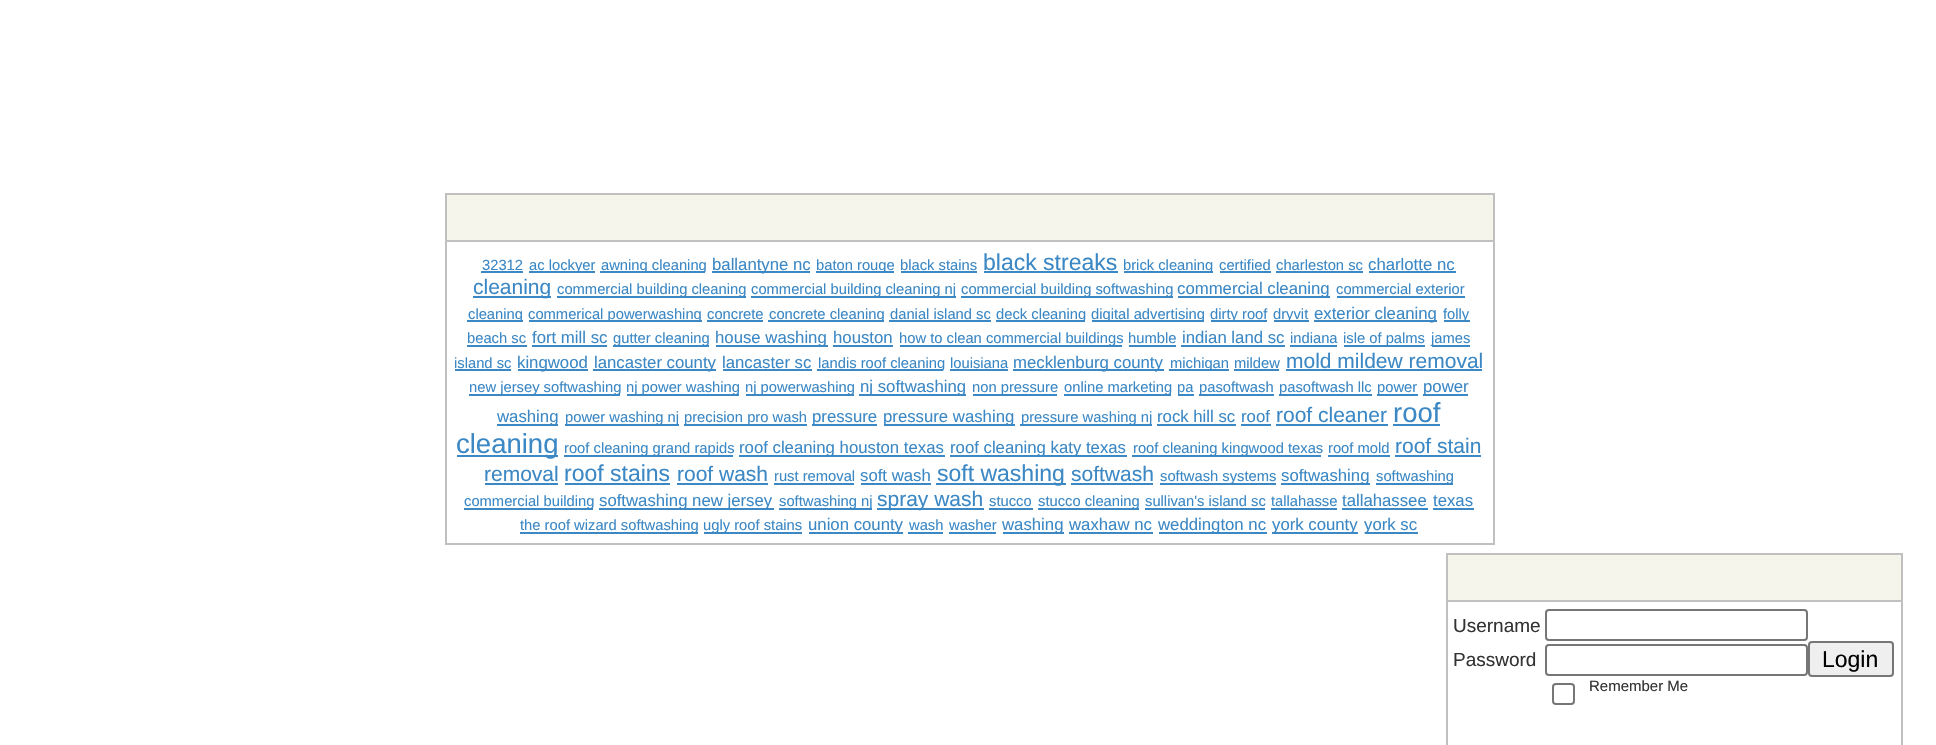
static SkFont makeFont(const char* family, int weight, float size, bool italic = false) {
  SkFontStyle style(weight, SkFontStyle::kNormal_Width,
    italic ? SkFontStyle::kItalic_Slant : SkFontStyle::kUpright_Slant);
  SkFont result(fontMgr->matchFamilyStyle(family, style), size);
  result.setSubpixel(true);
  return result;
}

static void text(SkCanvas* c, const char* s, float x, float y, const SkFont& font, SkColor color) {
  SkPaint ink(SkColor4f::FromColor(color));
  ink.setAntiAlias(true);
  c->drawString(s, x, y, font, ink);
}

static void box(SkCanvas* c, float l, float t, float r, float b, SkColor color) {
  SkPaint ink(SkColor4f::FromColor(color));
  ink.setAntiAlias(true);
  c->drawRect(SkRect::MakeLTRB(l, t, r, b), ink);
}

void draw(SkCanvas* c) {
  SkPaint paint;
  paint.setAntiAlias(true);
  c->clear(0xffffffff);
  box(c, 445, 193, 1495, 195, 0xffc0c0c0);
  box(c, 1493, 193, 1495, 544, 0xffc0c0c0);
  box(c, 445, 543, 1495, 545, 0xffc0c0c0);
  box(c, 445, 193, 447, 544, 0xffc0c0c0);
  box(c, 447, 195, 1493, 240, 0xfff6f5eb);
  box(c, 445, 240, 1495, 242, 0xffc0c0c0);
  SkFont face1 = makeFont("Liberation Sans", 400, 14.75f);
  text(c, "32312", 482, 270, face1, 0xff3b88c5);
  box(c, 481, 271, 523, 273, 0xff3b88c5);
  box(c, 529, 271, 595, 273, 0xff3b88c5);
  text(c, "ac lockyer", 529, 270, face1, 0xff3b88c5);
  box(c, 600, 271, 705, 273, 0xff3b88c5);
  text(c, "awning cleaning", 601, 270, face1, 0xff3b88c5);
  box(c, 712, 271, 810, 273, 0xff3b88c5);
  SkFont face2 = makeFont("Liberation Sans", 400, 16.75f);
  text(c, "ballantyne nc", 712, 270, face2, 0xff3b88c5);
  box(c, 816, 271, 894, 273, 0xff3b88c5);
  text(c, "baton rouge", 816, 270, face1, 0xff3b88c5);
  text(c, "black stains", 900, 270, face1, 0xff3b88c5);
  box(c, 901, 271, 977, 273, 0xff3b88c5);
  SkFont face3 = makeFont("Liberation Sans", 400, 23);
  text(c, "black streaks", 983, 270, face3, 0xff3b88c5);
  box(c, 984, 271, 1118, 273, 0xff3b88c5);
  box(c, 1124, 271, 1213, 273, 0xff3b88c5);
  text(c, "brick cleaning", 1123, 270, face1, 0xff3b88c5);
  text(c, "certified", 1219, 270, face1, 0xff3b88c5);
  box(c, 1220, 271, 1271, 273, 0xff3b88c5);
  text(c, "charleston sc", 1276, 270, face1, 0xff3b88c5);
  box(c, 1276, 271, 1363, 273, 0xff3b88c5);
  text(c, "charlotte nc", 1368, 270, face2, 0xff3b88c5);
  box(c, 1369, 271, 1456, 273, 0xff3b88c5);
  box(c, 473, 296, 551, 298, 0xff3b88c5);
  SkFont face4 = makeFont("Liberation Sans", 400, 21);
  text(c, "cleaning", 473, 294, face4, 0xff3b88c5);
  box(c, 557, 296, 746, 298, 0xff3b88c5);
  text(c, "commercial building cleaning", 557, 294, face1, 0xff3b88c5);
  box(c, 751, 296, 956, 298, 0xff3b88c5);
  text(c, "commercial building cleaning nj", 751, 294, face1, 0xff3b88c5);
  box(c, 961, 296, 1173, 298, 0xff3b88c5);
  text(c, "commercial building softwashing", 961, 294, face1, 0xff3b88c5);
  box(c, 1178, 296, 1330, 298, 0xff3b88c5);
  text(c, "commercial cleaning", 1177, 294, face2, 0xff3b88c5);
  text(c, "commercial exterior", 1336, 294, face1, 0xff3b88c5);
  box(c, 1337, 296, 1465, 298, 0xff3b88c5);
  box(c, 467, 320, 523, 322, 0xff3b88c5);
  text(c, "cleaning", 468, 319, face1, 0xff3b88c5);
  box(c, 529, 320, 702, 322, 0xff3b88c5);
  text(c, "commerical powerwashing", 528, 319, face1, 0xff3b88c5);
  text(c, "concrete", 707, 319, face1, 0xff3b88c5);
  box(c, 707, 320, 763, 322, 0xff3b88c5);
  box(c, 768, 320, 884, 322, 0xff3b88c5);
  text(c, "concrete cleaning", 769, 319, face1, 0xff3b88c5);
  text(c, "danial island sc", 890, 319, face1, 0xff3b88c5);
  box(c, 889, 320, 991, 322, 0xff3b88c5);
  box(c, 996, 320, 1085, 322, 0xff3b88c5);
  text(c, "deck cleaning", 996, 319, face1, 0xff3b88c5);
  box(c, 1092, 320, 1204, 322, 0xff3b88c5);
  text(c, "digital advertising", 1091, 319, face1, 0xff3b88c5);
  box(c, 1211, 320, 1267, 322, 0xff3b88c5);
  text(c, "dirty roof", 1210, 319, face1, 0xff3b88c5);
  box(c, 1274, 320, 1309, 322, 0xff3b88c5);
  text(c, "dryvit", 1273, 319, face1, 0xff3b88c5);
  box(c, 1314, 320, 1437, 322, 0xff3b88c5);
  text(c, "exterior cleaning", 1314, 319, face2, 0xff3b88c5);
  box(c, 1444, 320, 1470, 322, 0xff3b88c5);
  text(c, "folly", 1443, 319, face1, 0xff3b88c5);
  text(c, "beach sc", 467, 343, face1, 0xff3b88c5);
  box(c, 467, 345, 527, 347, 0xff3b88c5);
  text(c, "fort mill sc", 532, 343, face2, 0xff3b88c5);
  box(c, 532, 345, 607, 347, 0xff3b88c5);
  box(c, 613, 345, 709, 347, 0xff3b88c5);
  text(c, "gutter cleaning", 613, 343, face1, 0xff3b88c5);
  box(c, 716, 345, 828, 347, 0xff3b88c5);
  text(c, "house washing", 715, 343, face2, 0xff3b88c5);
  text(c, "houston", 833, 343, face2, 0xff3b88c5);
  box(c, 833, 345, 893, 347, 0xff3b88c5);
  box(c, 900, 345, 1122, 347, 0xff3b88c5);
  text(c, "how to clean commercial buildings", 899, 343, face1, 0xff3b88c5);
  text(c, "humble", 1128, 343, face1, 0xff3b88c5);
  box(c, 1129, 345, 1176, 347, 0xff3b88c5);
  text(c, "indian land sc", 1182, 343, face2, 0xff3b88c5);
  box(c, 1181, 345, 1285, 347, 0xff3b88c5);
  text(c, "indiana", 1290, 343, face1, 0xff3b88c5);
  box(c, 1290, 345, 1337, 347, 0xff3b88c5);
  box(c, 1344, 345, 1425, 347, 0xff3b88c5);
  text(c, "isle of palms", 1343, 343, face1, 0xff3b88c5);
  box(c, 1432, 345, 1470, 347, 0xff3b88c5);
  text(c, "james", 1431, 343, face1, 0xff3b88c5);
  text(c, "island sc", 454, 368, face1, 0xff3b88c5);
  box(c, 455, 369, 511, 371, 0xff3b88c5);
  box(c, 518, 369, 588, 371, 0xff3b88c5);
  text(c, "kingwood", 517, 368, face2, 0xff3b88c5);
  box(c, 593, 369, 716, 371, 0xff3b88c5);
  text(c, "lancaster county", 594, 368, face2, 0xff3b88c5);
  text(c, "lancaster sc", 722, 368, face2, 0xff3b88c5);
  box(c, 723, 369, 812, 371, 0xff3b88c5);
  box(c, 817, 369, 943, 371, 0xff3b88c5);
  text(c, "landis roof cleaning", 818, 368, face1, 0xff3b88c5);
  text(c, "louisiana", 950, 368, face1, 0xff3b88c5);
  box(c, 950, 369, 1008, 371, 0xff3b88c5);
  box(c, 1013, 369, 1164, 371, 0xff3b88c5);
  text(c, "mecklenburg county", 1013, 368, face2, 0xff3b88c5);
  box(c, 1169, 369, 1229, 371, 0xff3b88c5);
  text(c, "michigan", 1170, 368, face1, 0xff3b88c5);
  text(c, "mildew", 1234, 368, face1, 0xff3b88c5);
  box(c, 1234, 369, 1279, 371, 0xff3b88c5);
  text(c, "mold mildew removal", 1286, 368, face4, 0xff3b88c5);
  box(c, 1286, 369, 1482, 371, 0xff3b88c5);
  box(c, 469, 394, 620, 396, 0xff3b88c5);
  text(c, "new jersey softwashing", 469, 392, face1, 0xff3b88c5);
  box(c, 627, 394, 739, 396, 0xff3b88c5);
  text(c, "nj power washing", 626, 392, face1, 0xff3b88c5);
  box(c, 746, 394, 854, 396, 0xff3b88c5);
  text(c, "nj powerwashing", 745, 392, face1, 0xff3b88c5);
  box(c, 859, 394, 966, 396, 0xff3b88c5);
  text(c, "nj softwashing", 860, 392, face2, 0xff3b88c5);
  box(c, 973, 394, 1057, 396, 0xff3b88c5);
  text(c, "non pressure", 972, 392, face1, 0xff3b88c5);
  box(c, 1064, 394, 1171, 396, 0xff3b88c5);
  text(c, "online marketing", 1064, 392, face1, 0xff3b88c5);
  box(c, 1178, 394, 1194, 396, 0xff3b88c5);
  text(c, "pa", 1177, 392, face1, 0xff3b88c5);
  box(c, 1199, 394, 1274, 396, 0xff3b88c5);
  text(c, "pasoftwash", 1199, 392, face1, 0xff3b88c5);
  box(c, 1279, 394, 1372, 396, 0xff3b88c5);
  text(c, "pasoftwash llc", 1279, 392, face1, 0xff3b88c5);
  box(c, 1377, 394, 1418, 396, 0xff3b88c5);
  text(c, "power", 1377, 392, face1, 0xff3b88c5);
  box(c, 1423, 394, 1468, 396, 0xff3b88c5);
  text(c, "power", 1423, 392, face2, 0xff3b88c5);
  box(c, 497, 424, 558, 426, 0xff3b88c5);
  text(c, "washing", 497, 422, face2, 0xff3b88c5);
  box(c, 565, 424, 679, 426, 0xff3b88c5);
  text(c, "power washing nj", 565, 422, face1, 0xff3b88c5);
  box(c, 684, 424, 807, 426, 0xff3b88c5);
  text(c, "precision pro wash", 684, 422, face1, 0xff3b88c5);
  box(c, 812, 424, 877, 426, 0xff3b88c5);
  text(c, "pressure", 812, 422, face2, 0xff3b88c5);
  box(c, 884, 424, 1015, 426, 0xff3b88c5);
  text(c, "pressure washing", 883, 422, face2, 0xff3b88c5);
  box(c, 1020, 424, 1152, 426, 0xff3b88c5);
  text(c, "pressure washing nj", 1021, 422, face1, 0xff3b88c5);
  text(c, "rock hill sc", 1157, 422, face2, 0xff3b88c5);
  box(c, 1157, 424, 1236, 426, 0xff3b88c5);
  text(c, "roof", 1241, 422, face2, 0xff3b88c5);
  box(c, 1241, 424, 1271, 426, 0xff3b88c5);
  text(c, "roof cleaner", 1276, 422, face4, 0xff3b88c5);
  box(c, 1276, 424, 1388, 426, 0xff3b88c5);
  SkFont face5 = makeFont("Liberation Sans", 400, 27.5f);
  text(c, "roof", 1393, 422, face5, 0xff3b88c5);
  box(c, 1393, 424, 1440, 426, 0xff3b88c5);
  box(c, 457, 455, 558, 457, 0xff3b88c5);
  text(c, "cleaning", 456, 453, face5, 0xff3b88c5);
  box(c, 564, 455, 733, 457, 0xff3b88c5);
  text(c, "roof cleaning grand rapids", 564, 453, face1, 0xff3b88c5);
  box(c, 739, 455, 945, 457, 0xff3b88c5);
  text(c, "roof cleaning houston texas", 739, 453, face2, 0xff3b88c5);
  box(c, 950, 455, 1127, 457, 0xff3b88c5);
  text(c, "roof cleaning katy texas", 950, 453, face2, 0xff3b88c5);
  box(c, 1132, 455, 1321, 457, 0xff3b88c5);
  text(c, "roof cleaning kingwood texas", 1133, 453, face1, 0xff3b88c5);
  text(c, "roof mold", 1328, 453, face1, 0xff3b88c5);
  box(c, 1328, 455, 1390, 457, 0xff3b88c5);
  text(c, "roof stain", 1395, 453, face4, 0xff3b88c5);
  box(c, 1395, 455, 1481, 457, 0xff3b88c5);
  text(c, "removal", 484, 481, face4, 0xff3b88c5);
  box(c, 485, 483, 558, 485, 0xff3b88c5);
  text(c, "roof stains", 564, 481, face3, 0xff3b88c5);
  box(c, 565, 483, 670, 485, 0xff3b88c5);
  text(c, "roof wash", 677, 481, face4, 0xff3b88c5);
  box(c, 677, 483, 768, 485, 0xff3b88c5);
  text(c, "rust removal", 774, 481, face1, 0xff3b88c5);
  box(c, 774, 483, 854, 485, 0xff3b88c5);
  text(c, "soft wash", 860, 481, face2, 0xff3b88c5);
  box(c, 861, 483, 931, 485, 0xff3b88c5);
  box(c, 936, 483, 1066, 485, 0xff3b88c5);
  text(c, "soft washing", 937, 481, face3, 0xff3b88c5);
  text(c, "softwash", 1071, 481, face4, 0xff3b88c5);
  box(c, 1071, 483, 1153, 485, 0xff3b88c5);
  box(c, 1160, 483, 1276, 485, 0xff3b88c5);
  text(c, "softwash systems", 1160, 481, face1, 0xff3b88c5);
  box(c, 1281, 483, 1370, 485, 0xff3b88c5);
  text(c, "softwashing", 1281, 481, face2, 0xff3b88c5);
  box(c, 1376, 483, 1453, 485, 0xff3b88c5);
  text(c, "softwashing", 1376, 481, face1, 0xff3b88c5);
  box(c, 464, 508, 593, 510, 0xff3b88c5);
  text(c, "commercial building", 464, 506, face1, 0xff3b88c5);
  box(c, 599, 508, 774, 510, 0xff3b88c5);
  text(c, "softwashing new jersey", 599, 506, face2, 0xff3b88c5);
  box(c, 779, 508, 872, 510, 0xff3b88c5);
  text(c, "softwashing nj", 779, 506, face1, 0xff3b88c5);
  box(c, 877, 508, 984, 510, 0xff3b88c5);
  text(c, "spray wash", 877, 506, face4, 0xff3b88c5);
  text(c, "stucco", 989, 506, face1, 0xff3b88c5);
  box(c, 989, 508, 1033, 510, 0xff3b88c5);
  box(c, 1038, 508, 1139, 510, 0xff3b88c5);
  text(c, "stucco cleaning", 1038, 506, face1, 0xff3b88c5);
  text(c, "sullivan's island sc", 1145, 506, face1, 0xff3b88c5);
  box(c, 1145, 508, 1265, 510, 0xff3b88c5);
  text(c, "tallahasse", 1271, 506, face1, 0xff3b88c5);
  box(c, 1271, 508, 1337, 510, 0xff3b88c5);
  text(c, "tallahassee", 1342, 506, face2, 0xff3b88c5);
  box(c, 1342, 508, 1428, 510, 0xff3b88c5);
  text(c, "texas", 1433, 506, face2, 0xff3b88c5);
  box(c, 1433, 508, 1474, 510, 0xff3b88c5);
  box(c, 520, 532, 698, 534, 0xff3b88c5);
  text(c, "the roof wizard softwashing", 520, 530, face1, 0xff3b88c5);
  box(c, 704, 532, 802, 534, 0xff3b88c5);
  text(c, "ugly roof stains", 703, 530, face1, 0xff3b88c5);
  box(c, 809, 532, 903, 534, 0xff3b88c5);
  text(c, "union county", 808, 530, face2, 0xff3b88c5);
  text(c, "wash", 909, 530, face1, 0xff3b88c5);
  box(c, 908, 532, 943, 534, 0xff3b88c5);
  text(c, "washer", 949, 530, face1, 0xff3b88c5);
  box(c, 949, 532, 996, 534, 0xff3b88c5);
  box(c, 1003, 532, 1064, 534, 0xff3b88c5);
  text(c, "washing", 1002, 530, face2, 0xff3b88c5);
  text(c, "waxhaw nc", 1069, 530, face2, 0xff3b88c5);
  box(c, 1069, 532, 1153, 534, 0xff3b88c5);
  box(c, 1159, 532, 1267, 534, 0xff3b88c5);
  text(c, "weddington nc", 1158, 530, face2, 0xff3b88c5);
  box(c, 1272, 532, 1358, 534, 0xff3b88c5);
  text(c, "york county", 1272, 530, face2, 0xff3b88c5);
  box(c, 1365, 532, 1418, 534, 0xff3b88c5);
  text(c, "york sc", 1364, 530, face2, 0xff3b88c5);
  box(c, 1448, 553, 1901, 602, 0xffc0c0c0);
  box(c, 1901, 553, 1903, 745, 0xffc0c0c0);
  box(c, 1446, 553, 1448, 745, 0xffc0c0c0);
  box(c, 1448, 555, 1901, 600, 0xfff6f5eb);
  SkFont face6 = makeFont("Liberation Sans", 400, 19);
  text(c, "Username", 1453, 632, face6, 0xff333333);
  paint.setStyle(SkPaint::kStroke_Style);
  paint.setStrokeWidth(2);
  paint.setColor(0xff767676);
  c->drawRoundRect(SkRect::MakeLTRB(1546, 610, 1807, 640), 3, 3, paint);
  text(c, "Password", 1453, 666, face6, 0xff333333);
  c->drawRoundRect(SkRect::MakeLTRB(1546, 645, 1807, 675), 3, 3, paint);
  paint.setStyle(SkPaint::kFill_Style);
  paint.setColor(0xffefefef);
  c->drawRoundRect(SkRect::MakeLTRB(1809, 642, 1893, 676), 3, 3, paint);
  paint.setStyle(SkPaint::kStroke_Style);
  paint.setColor(0xff767676);
  c->drawRoundRect(SkRect::MakeLTRB(1809, 642, 1893, 676), 3, 3, paint);
  text(c, "Login", 1822, 667, face3, 0xff000000);
  c->drawRoundRect(SkRect::MakeLTRB(1553, 684, 1574, 704), 3, 3, paint);
  SkFont face7 = makeFont("Liberation Sans", 400, 15);
  text(c, "Remember Me", 1589, 691, face7, 0xff333333);
}
